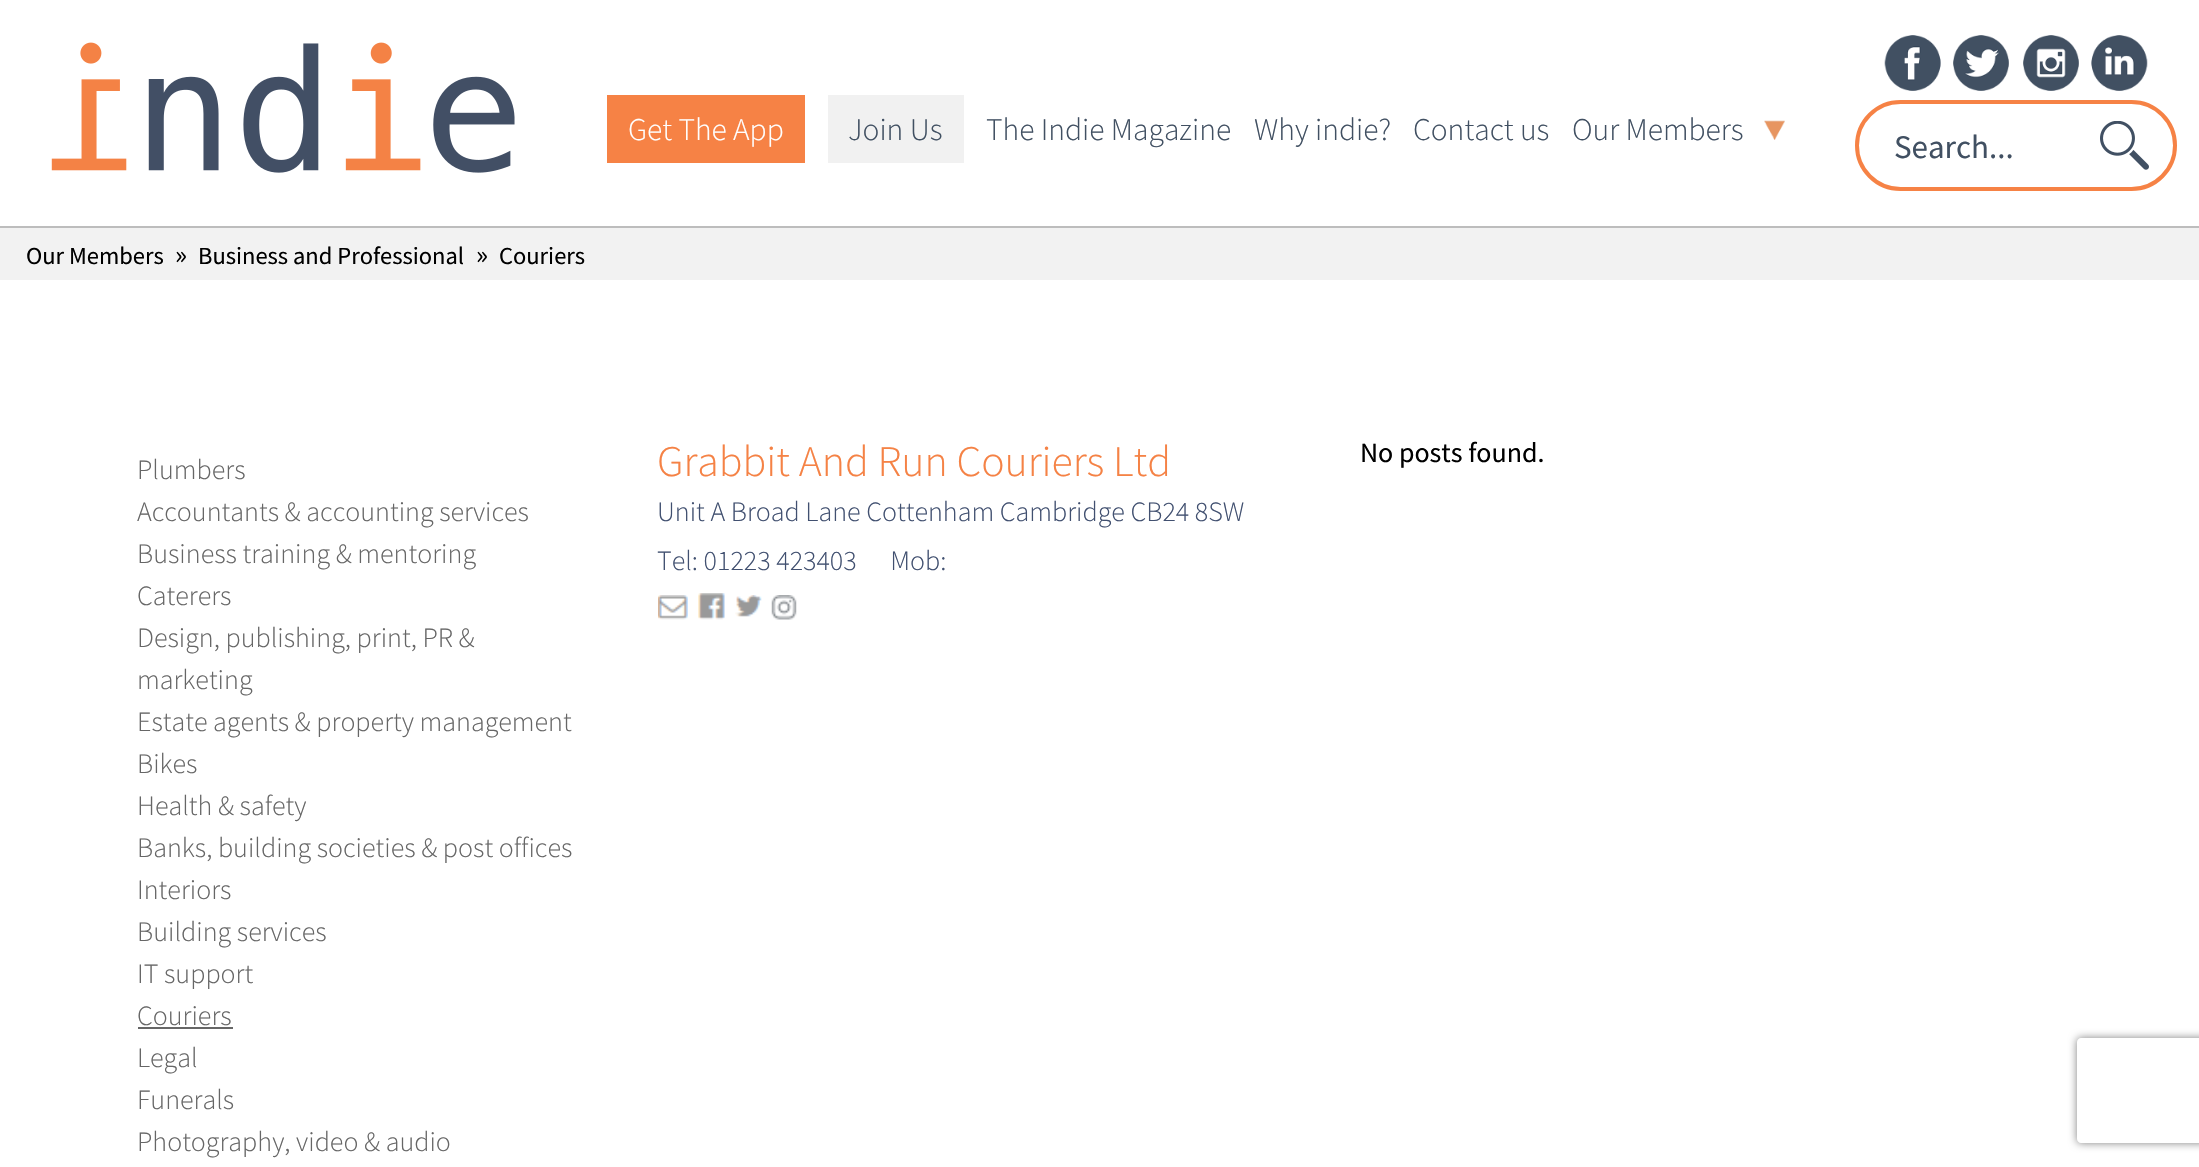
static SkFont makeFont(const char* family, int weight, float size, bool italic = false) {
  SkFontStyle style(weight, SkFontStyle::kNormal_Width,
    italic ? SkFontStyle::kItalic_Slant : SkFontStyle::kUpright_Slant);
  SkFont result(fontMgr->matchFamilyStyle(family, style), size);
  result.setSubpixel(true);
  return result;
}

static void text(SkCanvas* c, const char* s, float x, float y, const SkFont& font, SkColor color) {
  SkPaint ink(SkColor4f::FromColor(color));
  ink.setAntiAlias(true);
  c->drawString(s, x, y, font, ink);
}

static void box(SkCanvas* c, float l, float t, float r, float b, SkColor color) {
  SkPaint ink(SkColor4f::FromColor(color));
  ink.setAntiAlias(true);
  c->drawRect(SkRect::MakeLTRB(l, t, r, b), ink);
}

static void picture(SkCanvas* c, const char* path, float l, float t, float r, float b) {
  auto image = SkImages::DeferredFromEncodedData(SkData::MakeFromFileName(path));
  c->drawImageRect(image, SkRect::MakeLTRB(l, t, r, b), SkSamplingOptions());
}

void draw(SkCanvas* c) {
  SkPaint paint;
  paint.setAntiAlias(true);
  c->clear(0xffffffff);
  picture(c, "img_01.png", 51, 42, 515, 173);
  box(c, 607, 95, 805, 163, 0xfff68245);
  SkFont face1 = makeFont("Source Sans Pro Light", 300, 31.5f);
  text(c, "Get The App", 628, 140, face1, 0xffffffff);
  box(c, 828, 95, 964, 163, 0xfff1f1f1);
  text(c, "Join Us", 848, 140, face1, 0xff415062);
  text(c, "The Indie Magazine", 986, 140, face1, 0xff415062);
  text(c, "Why indie?", 1254, 140, face1, 0xff415062);
  text(c, "Contact us", 1413, 140, face1, 0xff415062);
  text(c, "Our Members", 1572, 140, face1, 0xff415062);
  picture(c, "img_02.png", 1764, 120, 1785, 140);
  picture(c, "img_03.png", 1884, 35, 1941, 91);
  picture(c, "img_04.png", 1953, 35, 2009, 91);
  picture(c, "img_05.png", 2023, 35, 2079, 91);
  picture(c, "img_06.png", 2091, 35, 2148, 91);
  paint.setStyle(SkPaint::kStroke_Style);
  paint.setStrokeWidth(4);
  paint.setColor(0xfff68245);
  c->drawRoundRect(SkRect::MakeLTRB(1857, 102, 2175, 189), 43.5f, 43.5f, paint);
  SkFont face2 = makeFont("Source Sans Pro", 400, 33);
  text(c, "Search...", 1894, 158, face2, 0xff415062);
  picture(c, "img_07.png", 2100, 121, 2149, 170);
  box(c, 0, 228, 2199, 280, 0xfff2f2f2);
  box(c, 0, 226, 2199, 228, 0xffbdbdbd);
  SkFont face3 = makeFont("Source Sans Pro", 400, 24.5f);
  text(c, "Our Members", 26, 264, face3, 0xff000000);
  SkFont face4 = makeFont("Source Sans Pro", 400, 28);
  text(c, "»", 175, 264, face4, 0xff000000);
  text(c, "Business and Professional", 198, 264, face3, 0xff000000);
  text(c, "»", 476, 264, face4, 0xff000000);
  text(c, "Couriers", 499, 264, face3, 0xff000000);
  SkFont face5 = makeFont("Source Sans Pro Light", 300, 28);
  text(c, "Plumbers", 137, 479, face5, 0xff666666);
  text(c, "Accountants & accounting services", 137, 521, face5, 0xff666666);
  text(c, "Business training & mentoring", 137, 563, face5, 0xff666666);
  text(c, "Caterers", 137, 605, face5, 0xff666666);
  text(c, "Design, publishing, print, PR &", 137, 647, face5, 0xff666666);
  text(c, "marketing", 137, 689, face5, 0xff666666);
  text(c, "Estate agents & property management", 137, 731, face5, 0xff666666);
  text(c, "Bikes", 137, 773, face5, 0xff666666);
  text(c, "Health & safety", 137, 815, face5, 0xff666666);
  text(c, "Banks, building societies & post offices", 137, 857, face5, 0xff666666);
  text(c, "Interiors", 137, 899, face5, 0xff666666);
  text(c, "Building services", 137, 941, face5, 0xff666666);
  text(c, "IT support", 137, 983, face5, 0xff666666);
  text(c, "Couriers", 137, 1025, face5, 0xff666666);
  box(c, 138, 1027, 233, 1029, 0xff666666);
  text(c, "Legal", 137, 1067, face5, 0xff666666);
  text(c, "Funerals", 137, 1109, face5, 0xff666666);
  text(c, "Photography, video & audio", 137, 1151, face5, 0xff666666);
  SkFont face6 = makeFont("Source Sans Pro Light", 300, 43.75f);
  text(c, "Grabbit And Run Couriers Ltd", 657, 476, face6, 0xfff58245);
  text(c, "Unit A Broad Lane Cottenham Cambridge CB24 8SW", 657, 521, face5, 0xff415070);
  text(c, "Tel: 01223 423403      Mob:", 657, 570, face5, 0xff415070);
  picture(c, "img_08.png", 658, 595, 688, 620);
  picture(c, "img_09.png", 698, 593, 725, 620);
  picture(c, "img_10.png", 735, 595, 762, 617);
  picture(c, "img_11.png", 771, 595, 797, 620);
  text(c, "No posts found.", 1360, 462, face4, 0xff000000);
  c->save();
  c->clipPath(SkPathBuilder(SkPathFillType::kEvenOdd).moveTo(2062, 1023).lineTo(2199, 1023).lineTo(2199, 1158).lineTo(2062, 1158).close().moveTo(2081, 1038).lineTo(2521, 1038).cubicTo(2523, 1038, 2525, 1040, 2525, 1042).lineTo(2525, 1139).cubicTo(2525, 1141, 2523, 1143, 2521, 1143).lineTo(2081, 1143).cubicTo(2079, 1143, 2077, 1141, 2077, 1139).lineTo(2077, 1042).cubicTo(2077, 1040, 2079, 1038, 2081, 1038).close().detach(), true);
  paint.setStyle(SkPaint::kFill_Style);
  paint.setColor(0xff808080);
  paint.setMaskFilter(SkMaskFilter::MakeBlur(kNormal_SkBlurStyle, 4.5f));
  c->drawRoundRect(SkRect::MakeLTRB(2077, 1038, 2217, 1143), 4, 4, paint);
  paint.setMaskFilter(nullptr);
  c->restore();
}
